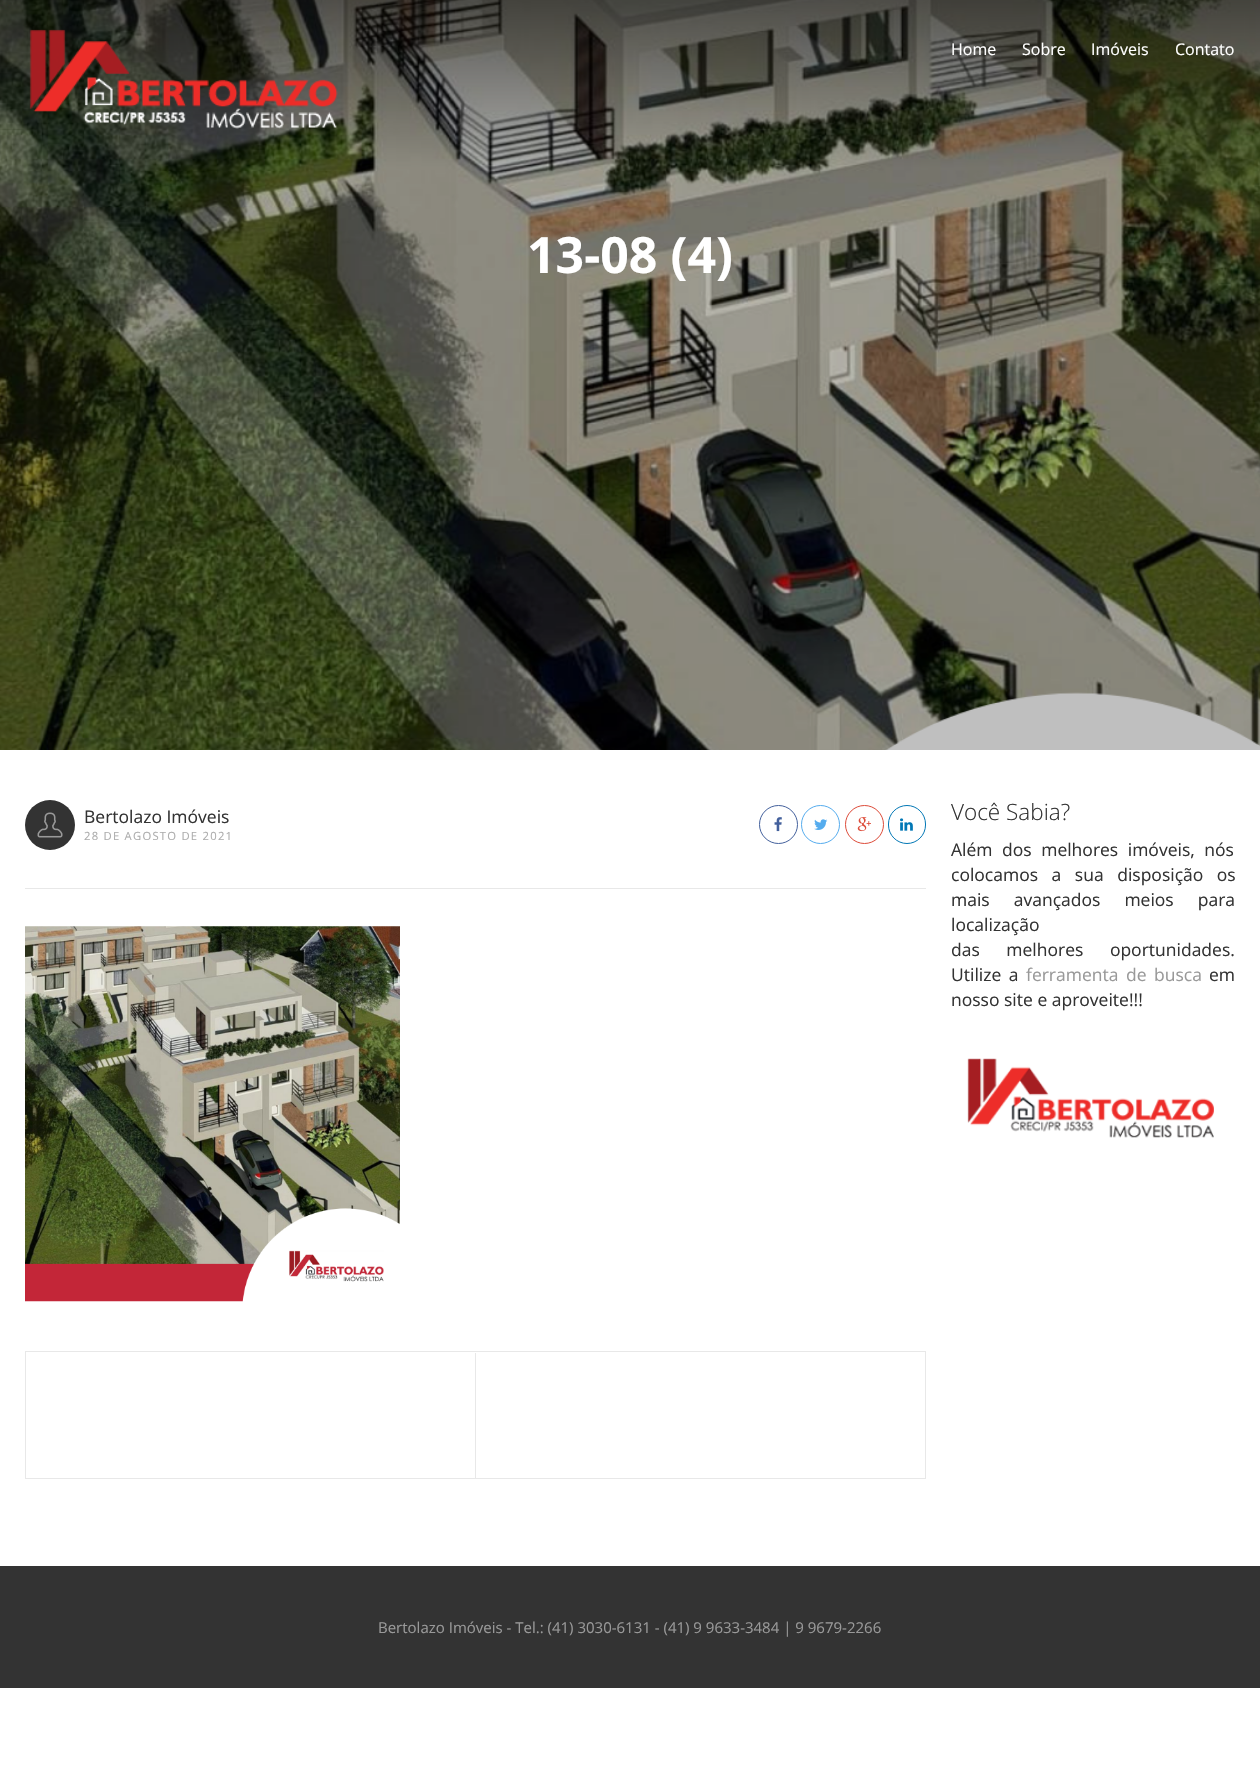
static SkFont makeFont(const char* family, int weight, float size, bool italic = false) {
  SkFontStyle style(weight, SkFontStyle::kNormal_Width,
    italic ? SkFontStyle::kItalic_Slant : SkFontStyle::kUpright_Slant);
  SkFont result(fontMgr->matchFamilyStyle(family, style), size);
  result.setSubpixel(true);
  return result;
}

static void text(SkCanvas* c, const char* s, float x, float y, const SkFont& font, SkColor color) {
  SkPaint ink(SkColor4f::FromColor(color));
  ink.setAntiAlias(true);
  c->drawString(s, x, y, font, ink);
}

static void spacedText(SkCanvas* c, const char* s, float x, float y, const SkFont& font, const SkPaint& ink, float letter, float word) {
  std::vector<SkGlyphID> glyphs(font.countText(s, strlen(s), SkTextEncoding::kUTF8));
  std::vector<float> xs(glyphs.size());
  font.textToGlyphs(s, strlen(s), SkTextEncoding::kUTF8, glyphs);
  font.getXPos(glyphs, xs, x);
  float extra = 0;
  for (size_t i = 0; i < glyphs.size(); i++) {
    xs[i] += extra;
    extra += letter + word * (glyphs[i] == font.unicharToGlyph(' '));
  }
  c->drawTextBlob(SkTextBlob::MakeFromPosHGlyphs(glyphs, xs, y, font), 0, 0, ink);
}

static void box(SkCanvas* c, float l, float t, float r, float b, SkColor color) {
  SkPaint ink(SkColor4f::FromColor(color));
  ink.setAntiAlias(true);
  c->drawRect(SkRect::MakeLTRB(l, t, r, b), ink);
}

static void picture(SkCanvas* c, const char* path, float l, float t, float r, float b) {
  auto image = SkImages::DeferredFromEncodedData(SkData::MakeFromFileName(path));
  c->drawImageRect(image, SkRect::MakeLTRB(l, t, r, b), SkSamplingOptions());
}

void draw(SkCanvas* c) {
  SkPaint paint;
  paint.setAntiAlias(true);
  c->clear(0xffffffff);
  picture(c, "img_02.png", 0, 0, 1260, 750);
  picture(c, "img_01.png", 29, 29, 338, 129);
  SkFont face1 = makeFont("Open Sans", 400, 16);
  text(c, "Home", 951, 55, face1, 0xffffffff);
  text(c, "Sobre", 1022, 55, face1, 0xffffffff);
  text(c, "Imóveis", 1091, 55, face1, 0xffffffff);
  text(c, "Contato", 1175, 55, face1, 0xffffffff);
  SkFont face2 = makeFont("Open Sans", 700, 50);
  text(c, "13-08 (4)", 527, 273, face2, 0xffffffff);
  box(c, 25, 888, 926, 889, 0xffe8e8e8);
  picture(c, "img_03.png", 25, 800, 75, 850);
  SkFont face3 = makeFont("Open Sans", 400, 17.5f);
  text(c, "Bertolazo Imóveis", 84, 823, face3, 0xff333333);
  SkFont face4 = makeFont("Open Sans", 400, 11.25f);
  paint.setColor(0xffadadad);
  spacedText(c, "28 DE AGOSTO DE 2021", 84, 840, face4, paint, 1.25f, 0);
  paint.setStyle(SkPaint::kStroke_Style);
  paint.setStrokeWidth(1);
  paint.setColor(0xff43609c);
  c->drawCircle(778.5f, 824.5f, 19, paint);
  picture(c, "img_04.png", 774, 817, 782, 832);
  paint.setColor(0xff55acee);
  c->drawCircle(820.5f, 824.5f, 19, paint);
  picture(c, "img_05.png", 814, 819, 828, 830);
  paint.setColor(0xffdd4b39);
  c->drawCircle(864.5f, 824.5f, 19, paint);
  picture(c, "img_06.png", 857, 817, 871, 832);
  paint.setColor(0xff0177b5);
  c->drawRoundRect(SkRect::MakeLTRB(888.5f, 805.5f, 925.5f, 843.5f), 18.5f, 18.5f, paint);
  picture(c, "img_07.png", 900, 818, 913, 831);
  picture(c, "img_08.png", 25, 926, 400, 1302);
  paint.setColor(0xffe8e8e8);
  c->drawRect(SkRect::MakeLTRB(25.5f, 1351.5f, 925.5f, 1478.5f), paint);
  box(c, 475, 1353, 476, 1478, 0xffe8e8e8);
  SkFont face5 = makeFont("Open Sans", 300, 22.5f);
  text(c, "Você Sabia?", 951, 820, face5, 0xff333333);
  paint.setStyle(SkPaint::kFill_Style);
  paint.setColor(0xff333333);
  spacedText(c, "Além dos melhores imóveis, nós", 951, 856, face3, paint, 0, 5);
  spacedText(c, "colocamos a sua disposição os", 951, 881, face3, paint, 0, 9);
  spacedText(c, "mais avançados meios para", 951, 906, face3, paint, 0, 19.5f);
  text(c, "localização", 951, 931, face3, 0xff333333);
  spacedText(c, "das melhores oportunidades.", 951, 956, face3, paint, 0, 22);
  spacedText(c, "Utilize a", 951, 981, face3, paint, 0, 3);
  paint.setColor(0xff999999);
  spacedText(c, "ferramenta de busca", 1026, 981, face3, paint, 0, 3);
  text(c, "em", 1209, 981, face3, 0xff333333);
  text(c, "nosso site e aproveite!!!", 951, 1006, face3, 0xff333333);
  picture(c, "img_09.png", 967, 1058, 1214, 1138);
  box(c, 0, 1566, 1260, 1688, 0xff333333);
  SkFont face6 = makeFont("Open Sans", 400, 15);
  text(c, "Bertolazo Imóveis - Tel.: (41) 3030-6131 - (41) 9 9633-3484 | 9 9679-2266", 378, 1633, face6, 0xff999999);
}
